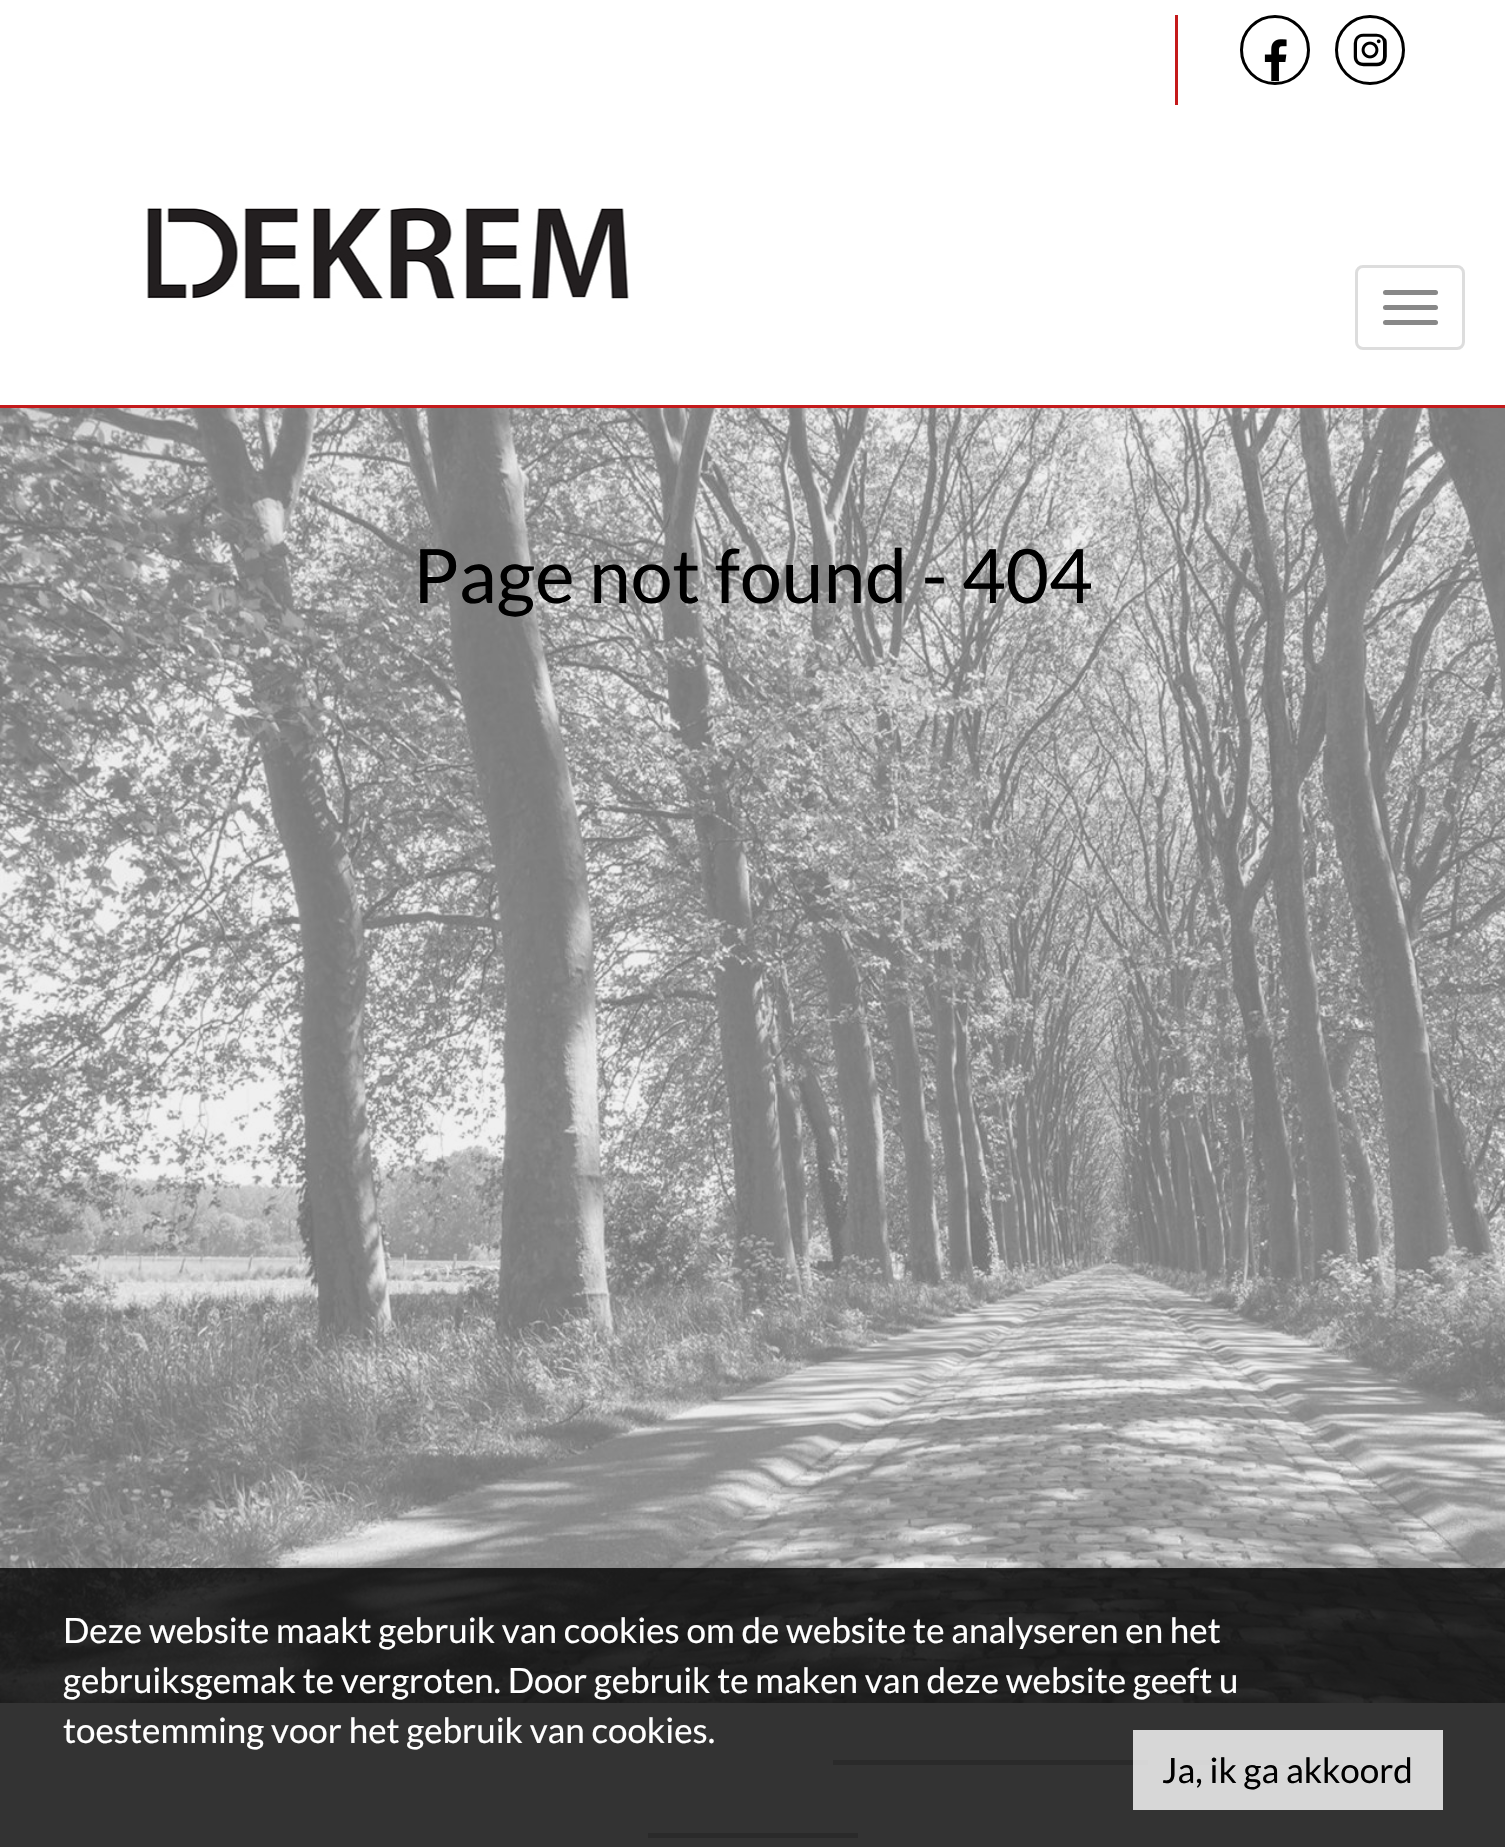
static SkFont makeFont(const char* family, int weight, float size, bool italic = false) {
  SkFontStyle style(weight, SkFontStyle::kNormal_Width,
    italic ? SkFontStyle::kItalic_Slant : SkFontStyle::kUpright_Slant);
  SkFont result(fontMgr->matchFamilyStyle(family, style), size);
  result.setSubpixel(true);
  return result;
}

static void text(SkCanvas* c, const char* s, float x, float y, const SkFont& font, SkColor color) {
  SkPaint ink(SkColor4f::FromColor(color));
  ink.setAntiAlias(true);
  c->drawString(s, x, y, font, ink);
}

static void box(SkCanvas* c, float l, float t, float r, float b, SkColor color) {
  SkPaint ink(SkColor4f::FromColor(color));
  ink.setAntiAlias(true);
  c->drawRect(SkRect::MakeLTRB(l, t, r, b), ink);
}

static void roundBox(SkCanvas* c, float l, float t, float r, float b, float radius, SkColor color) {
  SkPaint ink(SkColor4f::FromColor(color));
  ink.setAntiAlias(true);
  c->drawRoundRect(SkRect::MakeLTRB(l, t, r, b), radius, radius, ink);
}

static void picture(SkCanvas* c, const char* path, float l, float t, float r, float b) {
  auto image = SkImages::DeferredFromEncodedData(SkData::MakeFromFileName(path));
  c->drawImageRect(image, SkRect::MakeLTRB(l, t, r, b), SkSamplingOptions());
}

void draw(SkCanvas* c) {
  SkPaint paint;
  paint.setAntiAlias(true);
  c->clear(0xffe3e3e3);
  box(c, 0, 0, 1505, 405, 0xffffffff);
  box(c, 0, 405, 1505, 408, 0xffc41a1b);
  box(c, 1175, 15, 1178, 105, 0xffc41a1b);
  paint.setStyle(SkPaint::kStroke_Style);
  paint.setStrokeWidth(3);
  paint.setColor(0xff000000);
  c->drawCircle(1275, 50, 33.5f, paint);
  picture(c, "img_01.png", 1264, 39, 1287, 82);
  picture(c, "img_02.png", 1353, 33, 1387, 67);
  c->drawCircle(1370, 50, 33.5f, paint);
  picture(c, "img_03.png", 147, 208, 629, 299);
  paint.setColor(0xffdddddd);
  c->drawRoundRect(SkRect::MakeLTRB(1356.5f, 266.5f, 1463.5f, 348.5f), 6.5f, 6.5f, paint);
  roundBox(c, 1383, 290, 1438, 295, 2.5f, 0xff888888);
  roundBox(c, 1383, 305, 1438, 310, 2.5f, 0xff888888);
  roundBox(c, 1383, 320, 1438, 325, 2.5f, 0xff888888);
  picture(c, "img_04.png", 0, 408, 1505, 1703);
  SkFont face1 = makeFont("Lato", 400, 75);
  text(c, "Page not found - 404", 413, 603, face1, 0xff000000);
  box(c, 0, 1703, 1505, 1847, 0xffffffff);
  box(c, 833, 1760, 1148, 1765, 0xffd2d2d2);
  box(c, 1178, 1760, 1343, 1765, 0xffd2d2d2);
  box(c, 648, 1833, 858, 1838, 0xffd2d2d2);
  box(c, 0, 1568, 1505, 1847, 0xcc000000);
  SkFont face2 = makeFont("Lato", 400, 35);
  text(c, "Deze website maakt gebruik van cookies om de website te analyseren en het", 63, 1643, face2, 0xffffffff);
  text(c, "gebruiksgemak te vergroten. Door gebruik te maken van deze website geeft u", 63, 1693, face2, 0xffffffff);
  text(c, "toestemming voor het gebruik van cookies.", 63, 1743, face2, 0xffffffff);
  box(c, 1133, 1730, 1443, 1810, 0xccffffff);
  text(c, "Ja, ik ga akkoord", 1162, 1783, face2, 0xff000000);
}
